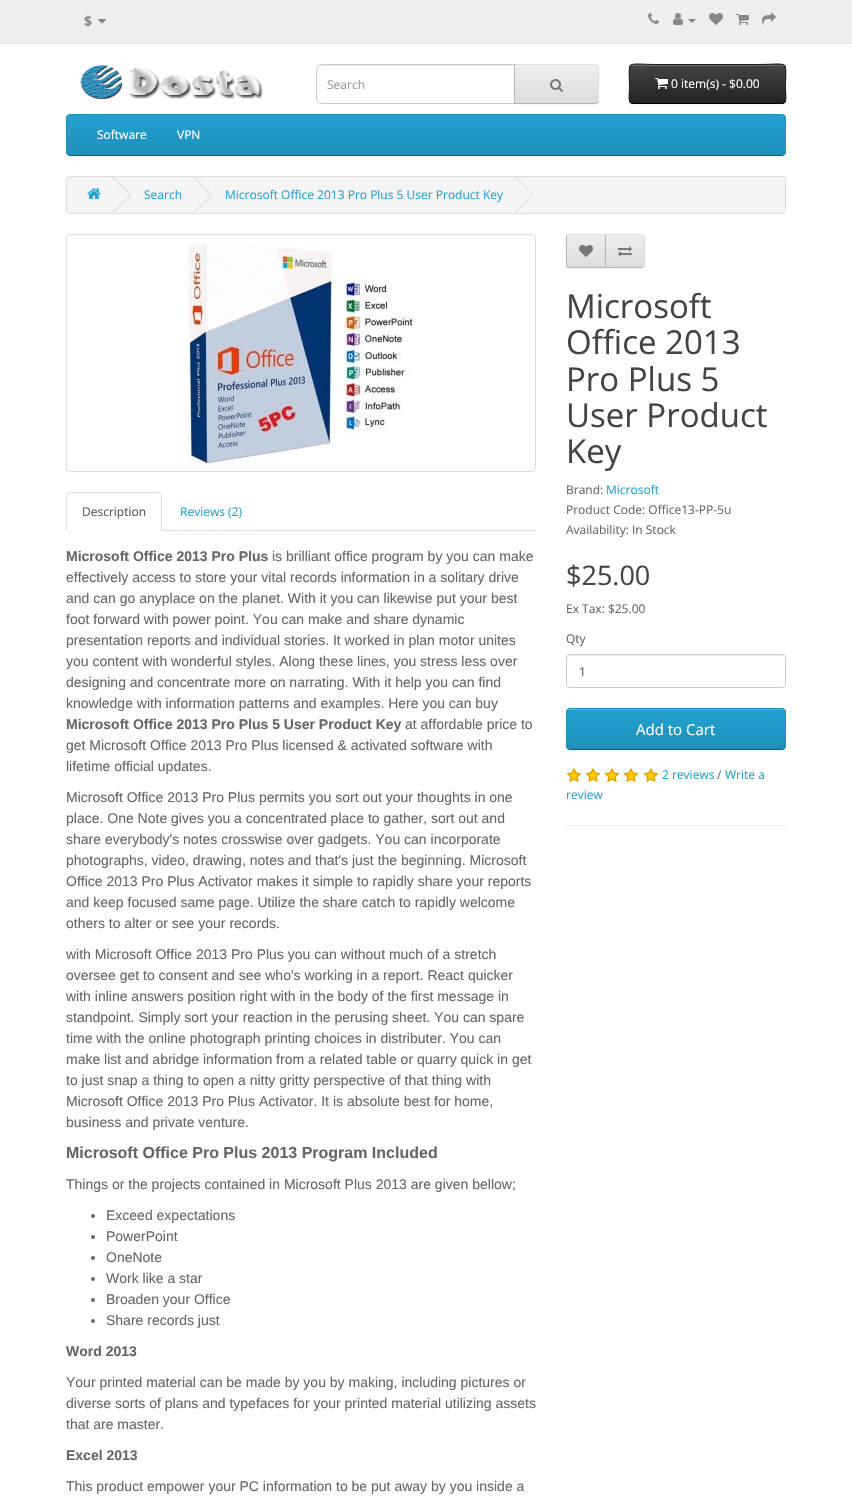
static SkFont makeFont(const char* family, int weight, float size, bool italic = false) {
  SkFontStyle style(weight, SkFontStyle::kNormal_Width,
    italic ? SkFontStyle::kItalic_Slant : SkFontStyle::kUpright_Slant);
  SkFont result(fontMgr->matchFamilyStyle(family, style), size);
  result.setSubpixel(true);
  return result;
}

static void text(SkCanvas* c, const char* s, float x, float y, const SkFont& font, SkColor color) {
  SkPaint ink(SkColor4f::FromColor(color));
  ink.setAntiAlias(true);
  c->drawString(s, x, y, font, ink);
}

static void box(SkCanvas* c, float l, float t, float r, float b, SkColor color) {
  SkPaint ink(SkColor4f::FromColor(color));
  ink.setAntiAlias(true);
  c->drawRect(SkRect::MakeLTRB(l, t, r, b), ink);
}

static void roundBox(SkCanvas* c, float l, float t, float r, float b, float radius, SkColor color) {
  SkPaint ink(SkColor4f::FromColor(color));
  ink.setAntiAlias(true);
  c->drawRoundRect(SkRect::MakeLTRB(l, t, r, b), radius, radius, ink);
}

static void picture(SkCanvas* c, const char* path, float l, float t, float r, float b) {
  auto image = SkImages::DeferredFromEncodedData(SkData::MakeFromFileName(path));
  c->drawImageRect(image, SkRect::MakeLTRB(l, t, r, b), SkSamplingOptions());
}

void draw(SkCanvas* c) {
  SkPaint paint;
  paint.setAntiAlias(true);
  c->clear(0xffffffff);
  box(c, 0, 0, 852, 43, 0xffeeeeee);
  box(c, 0, 43, 852, 44, 0xffe2e2e2);
  SkFont face1 = makeFont("Open Sans", 700, 14);
  text(c, "$", 84, 26, face1, 0xff888888);
  picture(c, "img_01.png", 98, 19, 106, 24);
  picture(c, "img_02.png", 648, 13, 659, 24);
  picture(c, "img_03.png", 673, 13, 683, 25);
  paint.setColor(0xff888888);
  c->drawPath(SkPathBuilder().moveTo(688, 19).lineTo(696, 19).lineTo(692, 23).close().detach(), paint);
  picture(c, "img_04.png", 709, 13, 723, 25);
  picture(c, "img_05.png", 736, 14, 749, 25);
  picture(c, "img_06.png", 762, 12, 776, 25);
  picture(c, "img_07.png", 80, 64, 263, 99);
  paint.setColor(0xffececec);
  c->drawPath(SkPathBuilder().moveTo(322, 66).lineTo(514, 66).lineTo(514, 65).lineTo(321, 65).cubicTo(318, 66, 317, 68, 317, 71).cubicTo(317, 68, 319, 66, 322, 66).close().detach(), paint);
  paint.setStyle(SkPaint::kStroke_Style);
  paint.setStrokeWidth(1);
  paint.setColor(0xffcccccc);
  c->drawPath(SkPathBuilder().moveTo(322, 64.5f).lineTo(514.5f, 64.5f).lineTo(514.5f, 103.5f).lineTo(322, 103.5f).cubicTo(319, 103.5f, 316.5f, 101, 316.5f, 98).lineTo(316.5f, 70).cubicTo(316.5f, 67, 319, 64.5f, 322, 64.5f).close().detach(), paint);
  SkFont face2 = makeFont("Open Sans", 400, 12);
  text(c, "Search", 327, 89, face2, 0xff999999);
  paint.setStyle(SkPaint::kFill_Style);
  paint.setColor(0x0d000000);
  paint.setMaskFilter(SkMaskFilter::MakeBlur(kNormal_SkBlurStyle, 1));
  c->drawRoundRect(SkRect::MakeLTRB(514, 65, 599, 105), 4, 4, paint);
  paint.setMaskFilter(nullptr);
  paint.setColor(0xffe7e7e7);
  c->drawPath(SkPathBuilder().moveTo(514, 64).lineTo(595, 64).cubicTo(597, 64, 599, 66, 599, 68).lineTo(599, 100).cubicTo(599, 102, 597, 104, 595, 104).lineTo(514, 104).close().detach(), paint);
  c->save();
  c->clipPath(SkPathBuilder().moveTo(514, 64).lineTo(595, 64).cubicTo(597, 64, 599, 66, 599, 68).lineTo(599, 100).cubicTo(599, 102, 597, 104, 595, 104).lineTo(514, 104).close().detach(), true);
  {
    const SkColor colors[] = {0xffeeeeee, 0xffdddddd};
    const float stops[] = {0, 1};
    const SkPoint ends[] = {{557, 65}, {557, 103}};
    paint.setShader(SkGradientShader::MakeLinear(ends, colors, stops, 2, SkTileMode::kClamp));
    paint.setAlpha(255);
  }
  c->drawRect(SkRect::MakeLTRB(515, 65, 599, 103), paint);
  c->restore();
  paint.setShader(nullptr);
  paint.setColor(0xfff1f1f1);
  c->drawPath(SkPathBuilder().moveTo(515, 66).lineTo(595, 66).cubicTo(597, 66, 598, 67, 598, 69).lineTo(598, 68).cubicTo(598, 66, 597, 65, 595, 65).lineTo(515, 65).close().detach(), paint);
  paint.setColor(0xffdddddd);
  c->drawPath(SkPathBuilder().moveTo(514, 64).lineTo(515, 65).lineTo(596, 65).lineTo(597, 66).lineTo(598, 65).lineTo(595, 64).close().detach(), paint);
  c->drawPath(SkPathBuilder().moveTo(599, 100).lineTo(599, 68).cubicTo(599, 67, 598.5f, 66, 598, 65).lineTo(597, 66).cubicTo(598, 66, 598, 67, 598, 68).lineTo(598, 100).cubicTo(598, 101, 598, 102, 597, 102).lineTo(598, 103).cubicTo(598.5f, 102, 599, 101, 599, 100).close().detach(), paint);
  paint.setColor(0xffb3b3b3);
  c->drawPath(SkPathBuilder().moveTo(595, 104).lineTo(598, 103).lineTo(597, 102).lineTo(596, 103).lineTo(515, 103).lineTo(514, 104).close().detach(), paint);
  paint.setColor(0xffb7b7b7);
  c->drawPath(SkPathBuilder().moveTo(514, 64).lineTo(514, 104).lineTo(515, 103).lineTo(515, 65).close().detach(), paint);
  picture(c, "img_08.png", 550, 79, 563, 92);
  paint.setColor(0x0d000000);
  paint.setMaskFilter(SkMaskFilter::MakeBlur(kNormal_SkBlurStyle, 1));
  c->drawRoundRect(SkRect::MakeLTRB(629, 65, 786, 105), 4, 4, paint);
  paint.setMaskFilter(nullptr);
  roundBox(c, 629, 64, 786, 104, 4, 0xff363636);
  c->save();
  c->clipPath(SkPathBuilder().moveTo(633, 64).lineTo(782, 64).cubicTo(784, 64, 786, 66, 786, 68).lineTo(786, 100).cubicTo(786, 102, 784, 104, 782, 104).lineTo(633, 104).cubicTo(631, 104, 629, 102, 629, 100).lineTo(629, 68).cubicTo(629, 66, 631, 64, 633, 64).close().detach(), true);
  {
    const SkColor colors[] = {0xff444444, 0xff222222};
    const float stops[] = {0, 1};
    const SkPoint ends[] = {{708, 65}, {708, 103}};
    paint.setShader(SkGradientShader::MakeLinear(ends, colors, stops, 2, SkTileMode::kClamp));
    paint.setAlpha(255);
  }
  c->drawRect(SkRect::MakeLTRB(629, 65, 786, 103), paint);
  c->restore();
  paint.setShader(nullptr);
  paint.setColor(0x33ffffff);
  c->drawPath(SkPathBuilder().moveTo(633, 66).lineTo(782, 66).cubicTo(784, 66, 785, 67, 785, 69).cubicTo(785, 67, 785, 66, 783, 65).lineTo(658, 65).cubicTo(650, 65, 630, 60, 630, 69).cubicTo(630, 67, 631, 66, 633, 66).close().detach(), paint);
  paint.setStyle(SkPaint::kStroke_Style);
  paint.setColor(0xff000000);
  c->drawPath(SkPathBuilder().moveTo(784.5f, 102.5f).cubicTo(784, 103, 783, 103.5f, 782, 103.5f).lineTo(633, 103.5f).cubicTo(632, 103.5f, 631, 103, 630.5f, 102.5f).detach(), paint);
  paint.setColor(0xff222222);
  c->drawPath(SkPathBuilder().moveTo(630.5f, 102.5f).cubicTo(628, 100, 629.5f, 92, 629.5f, 89.5f).cubicTo(629.5f, 58, 624, 64.5f, 658, 64.5f).lineTo(757, 64.5f).cubicTo(791, 64.5f, 785.5f, 58, 785.5f, 89.5f).cubicTo(785.5f, 92, 787, 100, 784.5f, 102.5f).detach(), paint);
  picture(c, "img_09.png", 655, 78, 668, 89);
  text(c, "0 item(s) - $0.00", 671, 88, face2, 0xffffffff);
  c->save();
  c->clipPath(SkPathBuilder().moveTo(70, 114).lineTo(782, 114).cubicTo(784, 114, 786, 116, 786, 118).lineTo(786, 152).cubicTo(786, 154, 784, 156, 782, 156).lineTo(70, 156).cubicTo(68, 156, 66, 154, 66, 152).lineTo(66, 118).cubicTo(66, 116, 68, 114, 70, 114).close().detach(), true);
  paint.setStyle(SkPaint::kFill_Style);
  {
    const SkColor colors[] = {0xff23a1d1, 0xff1f90bb};
    const float stops[] = {0, 1};
    const SkPoint ends[] = {{426, 115}, {426, 155}};
    paint.setShader(SkGradientShader::MakeLinear(ends, colors, stops, 2, SkTileMode::kClamp));
    paint.setAlpha(255);
  }
  c->drawRect(SkRect::MakeLTRB(66, 115, 786, 155), paint);
  c->restore();
  paint.setStyle(SkPaint::kStroke_Style);
  paint.setShader(nullptr);
  paint.setColor(0xff145e7a);
  c->drawPath(SkPathBuilder().moveTo(784.5f, 154.5f).cubicTo(784, 155, 783, 155.5f, 782, 155.5f).lineTo(70, 155.5f).cubicTo(69, 155.5f, 68, 155, 67.5f, 154.5f).detach(), paint);
  paint.setColor(0xff1f90bb);
  c->drawPath(SkPathBuilder().moveTo(67.5f, 154.5f).cubicTo(67, 154, 66.5f, 153, 66.5f, 152).lineTo(66.5f, 118).cubicTo(66.5f, 117, 67, 116, 67.5f, 115.5f).cubicTo(68, 115, 69, 114.5f, 70, 114.5f).lineTo(782, 114.5f).cubicTo(783, 114.5f, 784, 115, 784.5f, 115.5f).cubicTo(785, 116, 785.5f, 117, 785.5f, 118).lineTo(785.5f, 152).cubicTo(785.5f, 153, 785, 154, 784.5f, 154.5f).detach(), paint);
  text(c, "Software", 97, 139, face2, 0xffffffff);
  text(c, "VPN", 177, 139, face2, 0xffffffff);
  paint.setStyle(SkPaint::kFill_Style);
  paint.setColor(0xfff5f5f5);
  c->drawRoundRect(SkRect::MakeLTRB(66.5f, 176.5f, 785.5f, 213.5f), 3.5f, 3.5f, paint);
  paint.setStyle(SkPaint::kStroke_Style);
  paint.setColor(0xffdddddd);
  c->drawRoundRect(SkRect::MakeLTRB(66.5f, 176.5f, 785.5f, 213.5f), 3.5f, 3.5f, paint);
  picture(c, "img_10.png", 87, 188, 101, 199);
  paint.setStyle(SkPaint::kFill_Style);
  c->drawPath(SkPathBuilder().moveTo(112, 177.5f).lineTo(113, 176.5f).lineTo(131.5f, 195).lineTo(130.5f, 195.5f).close().detach(), paint);
  c->drawPath(SkPathBuilder().moveTo(112, 212.5f).lineTo(130.5f, 194.5f).lineTo(131.5f, 195).lineTo(113, 213.5f).close().detach(), paint);
  text(c, "Search", 144, 199, face2, 0xff23a1d1);
  c->drawPath(SkPathBuilder().moveTo(193.5f, 177.5f).lineTo(194, 176.5f).lineTo(212.5f, 195).lineTo(211.5f, 195.5f).close().detach(), paint);
  c->drawPath(SkPathBuilder().moveTo(193.5f, 212.5f).lineTo(211.5f, 194.5f).lineTo(212.5f, 195).lineTo(194, 213.5f).close().detach(), paint);
  text(c, "Microsoft Office 2013 Pro Plus 5 User Product Key", 225, 199, face2, 0xff23a1d1);
  c->drawPath(SkPathBuilder().moveTo(514.5f, 177.5f).lineTo(515, 176.5f).lineTo(533.5f, 195).lineTo(533, 195.5f).close().detach(), paint);
  c->drawPath(SkPathBuilder().moveTo(514.5f, 212.5f).lineTo(533, 194.5f).lineTo(533.5f, 195).lineTo(515, 213.5f).close().detach(), paint);
  paint.setStyle(SkPaint::kStroke_Style);
  c->drawRoundRect(SkRect::MakeLTRB(66.5f, 234.5f, 535.5f, 471.5f), 3.5f, 3.5f, paint);
  picture(c, "img_11.png", 187, 243, 415, 464);
  box(c, 162, 530, 536, 531, 0xffdddddd);
  paint.setStyle(SkPaint::kFill_Style);
  c->drawPath(SkPathBuilder().moveTo(70, 492).lineTo(67, 493).lineTo(68, 494).lineTo(70, 493).lineTo(158, 493).lineTo(160, 494).lineTo(161, 493).lineTo(158, 492).close().detach(), paint);
  c->drawPath(SkPathBuilder().moveTo(162, 531).lineTo(162, 496).cubicTo(162, 495, 161.5f, 494, 161, 493).lineTo(160, 494).cubicTo(161, 494, 161, 495, 161, 496).lineTo(161, 530).close().detach(), paint);
  c->drawPath(SkPathBuilder().moveTo(66, 531).lineTo(67, 530).lineTo(67, 496).cubicTo(67, 495, 67, 494, 68, 494).lineTo(67, 493).cubicTo(66.5f, 494, 66, 495, 66, 496).close().detach(), paint);
  text(c, "Description", 82, 516, face2, 0xff555555);
  text(c, "Reviews (2)", 180, 516, face2, 0xff23a1d1);
  SkFont face3 = makeFont("Liberation Sans", 700, 14);
  text(c, "Microsoft Office 2013 Pro Plus", 66, 561, face3, 0xff666666);
  SkFont face4 = makeFont("Liberation Sans", 400, 14);
  text(c, "is brilliant office program by you can make", 272, 561, face4, 0xff666666);
  text(c, "effectively access to store your vital records information in a solitary drive", 66, 582, face4, 0xff666666);
  text(c, "and can go anyplace on the planet. With it you can likewise put your best", 66, 603, face4, 0xff666666);
  text(c, "foot forward with power point. You can make and share dynamic", 66, 624, face4, 0xff666666);
  text(c, "presentation reports and individual stories. It worked in plan motor unites", 66, 645, face4, 0xff666666);
  text(c, "you content with wonderful styles. Along these lines, you stress less over", 66, 666, face4, 0xff666666);
  text(c, "designing and concentrate more on narrating. With it help you can find", 66, 687, face4, 0xff666666);
  text(c, "knowledge with information patterns and examples. Here you can buy", 66, 708, face4, 0xff666666);
  text(c, "Microsoft Office 2013 Pro Plus 5 User Product Key", 66, 729, face3, 0xff666666);
  text(c, "at affordable price to", 405, 729, face4, 0xff666666);
  text(c, "get Microsoft Office 2013 Pro Plus licensed & activated software with", 66, 750, face4, 0xff666666);
  text(c, "lifetime official updates.", 66, 771, face4, 0xff666666);
  text(c, "Microsoft Office 2013 Pro Plus permits you sort out your thoughts in one", 66, 802, face4, 0xff666666);
  text(c, "place. One Note gives you a concentrated place to gather, sort out and", 66, 823, face4, 0xff666666);
  text(c, "share everybody's notes crosswise over gadgets. You can incorporate", 66, 844, face4, 0xff666666);
  text(c, "photographs, video, drawing, notes and that's just the beginning. Microsoft", 66, 865, face4, 0xff666666);
  text(c, "Office 2013 Pro Plus Activator makes it simple to rapidly share your reports", 66, 886, face4, 0xff666666);
  text(c, "and keep focused same page. Utilize the share catch to rapidly welcome", 66, 907, face4, 0xff666666);
  text(c, "others to alter or see your records.", 66, 928, face4, 0xff666666);
  text(c, "with Microsoft Office 2013 Pro Plus you can without much of a stretch", 66, 959, face4, 0xff666666);
  text(c, "oversee get to consent and see who's working in a report. React quicker", 66, 980, face4, 0xff666666);
  text(c, "with inline answers position right with in the body of the first message in", 66, 1001, face4, 0xff666666);
  text(c, "standpoint. Simply sort your reaction in the perusing sheet. You can spare", 66, 1022, face4, 0xff666666);
  text(c, "time with the online photograph printing choices in distributer. You can", 66, 1043, face4, 0xff666666);
  text(c, "make list and abridge information from a related table or quarry quick in get", 66, 1064, face4, 0xff666666);
  text(c, "to just snap a thing to open a nitty gritty perspective of that thing with", 66, 1085, face4, 0xff666666);
  text(c, "Microsoft Office 2013 Pro Plus Activator. It is absolute best for home,", 66, 1106, face4, 0xff666666);
  text(c, "business and private venture.", 66, 1127, face4, 0xff666666);
  SkFont face5 = makeFont("Liberation Sans", 700, 16);
  text(c, "Microsoft Office Pro Plus 2013 Program Included", 66, 1158, face5, 0xff666666);
  text(c, "Things or the projects contained in Microsoft Plus 2013 are given bellow;", 66, 1189, face4, 0xff666666);
  paint.setColor(0xff666666);
  c->drawCircle(93, 1216, 2, paint);
  text(c, "Exceed expectations", 106, 1220, face4, 0xff666666);
  c->drawCircle(93, 1237, 2, paint);
  text(c, "PowerPoint", 106, 1241, face4, 0xff666666);
  c->drawCircle(93, 1258, 2, paint);
  text(c, "OneNote", 106, 1262, face4, 0xff666666);
  c->drawCircle(93, 1279, 2, paint);
  text(c, "Work like a star", 106, 1283, face4, 0xff666666);
  c->drawCircle(93, 1300, 2, paint);
  text(c, "Broaden your Office", 106, 1304, face4, 0xff666666);
  c->drawCircle(93, 1321, 2, paint);
  text(c, "Share records just", 106, 1325, face4, 0xff666666);
  text(c, "Word 2013", 66, 1356, face3, 0xff666666);
  text(c, "Your printed material can be made by you by making, including pictures or", 66, 1387, face4, 0xff666666);
  text(c, "diverse sorts of plans and typefaces for your printed material utilizing assets", 66, 1408, face4, 0xff666666);
  text(c, "that are master.", 66, 1429, face4, 0xff666666);
  text(c, "Excel 2013", 66, 1460, face3, 0xff666666);
  text(c, "This product empower your PC information to be put away by you inside a", 66, 1491, face4, 0xff666666);
  paint.setColor(0x0d000000);
  paint.setMaskFilter(SkMaskFilter::MakeBlur(kNormal_SkBlurStyle, 1));
  c->drawRoundRect(SkRect::MakeLTRB(566, 235, 606, 269), 4, 4, paint);
  paint.setMaskFilter(nullptr);
  c->save();
  c->clipPath(SkPathBuilder().moveTo(570, 234).lineTo(606, 234).lineTo(606, 268).lineTo(570, 268).cubicTo(568, 268, 566, 266, 566, 264).lineTo(566, 238).cubicTo(566, 236, 568, 234, 570, 234).close().detach(), true);
  {
    const SkColor colors[] = {0xffeeeeee, 0xffdddddd};
    const float stops[] = {0, 1};
    const SkPoint ends[] = {{586, 235}, {586, 267}};
    paint.setShader(SkGradientShader::MakeLinear(ends, colors, stops, 2, SkTileMode::kClamp));
    paint.setAlpha(255);
  }
  c->drawRect(SkRect::MakeLTRB(566, 235, 605, 267), paint);
  c->restore();
  paint.setShader(nullptr);
  paint.setColor(0xfff1f1f1);
  c->drawPath(SkPathBuilder().moveTo(570, 236).lineTo(605, 236).lineTo(605, 235).lineTo(570, 235).cubicTo(568.5f, 235, 567, 236.5f, 567, 238).lineTo(567, 239).cubicTo(567, 237, 568, 236, 570, 236).close().detach(), paint);
  paint.setColor(0xffdddddd);
  c->drawPath(SkPathBuilder().moveTo(570, 234).cubicTo(569, 234, 568, 234.5f, 567, 235).lineTo(568, 236).cubicTo(568, 235, 569, 235, 570, 235).lineTo(605, 235).lineTo(606, 234).close().detach(), paint);
  paint.setColor(0xffb3b3b3);
  c->drawPath(SkPathBuilder().moveTo(606, 268).lineTo(605, 267).lineTo(570, 267).cubicTo(569, 267, 568, 267, 568, 266).lineTo(567, 267).cubicTo(568, 267.5f, 569, 268, 570, 268).close().detach(), paint);
  paint.setColor(0xffb7b7b7);
  c->drawPath(SkPathBuilder().moveTo(566, 238).lineTo(566, 264).cubicTo(566, 265, 566.5f, 266, 567, 267).lineTo(568, 266).cubicTo(567, 266, 567, 265, 567, 264).lineTo(567, 238).cubicTo(567, 237, 567, 236, 568, 236).lineTo(567, 235).cubicTo(566.5f, 236, 566, 237, 566, 238).close().detach(), paint);
  picture(c, "img_12.png", 579, 245, 593, 257);
  paint.setColor(0x0d000000);
  paint.setMaskFilter(SkMaskFilter::MakeBlur(kNormal_SkBlurStyle, 1));
  c->drawRoundRect(SkRect::MakeLTRB(605, 235, 645, 269), 4, 4, paint);
  paint.setMaskFilter(nullptr);
  c->save();
  c->clipPath(SkPathBuilder().moveTo(605, 234).lineTo(641, 234).cubicTo(643, 234, 645, 236, 645, 238).lineTo(645, 264).cubicTo(645, 266, 643, 268, 641, 268).lineTo(605, 268).close().detach(), true);
  {
    const SkColor colors[] = {0xffeeeeee, 0xffdddddd};
    const float stops[] = {0, 1};
    const SkPoint ends[] = {{625, 235}, {625, 267}};
    paint.setShader(SkGradientShader::MakeLinear(ends, colors, stops, 2, SkTileMode::kClamp));
    paint.setAlpha(255);
  }
  c->drawRect(SkRect::MakeLTRB(606, 235, 645, 267), paint);
  c->restore();
  paint.setShader(nullptr);
  paint.setColor(0xfff1f1f1);
  c->drawPath(SkPathBuilder().moveTo(606, 236).lineTo(641, 236).cubicTo(643, 236, 644, 237, 644, 239).lineTo(644, 238).cubicTo(644, 236.5f, 642.5f, 235, 641, 235).lineTo(606, 235).close().detach(), paint);
  paint.setColor(0xffdddddd);
  c->drawPath(SkPathBuilder().moveTo(605, 234).lineTo(606, 235).lineTo(641, 235).cubicTo(642, 235, 643, 235, 643, 236).lineTo(644, 235).cubicTo(643, 234.5f, 642, 234, 641, 234).close().detach(), paint);
  c->drawPath(SkPathBuilder().moveTo(645, 264).lineTo(645, 238).cubicTo(645, 237, 644.5f, 236, 644, 235).lineTo(643, 236).cubicTo(644, 236, 644, 237, 644, 238).lineTo(644, 264).cubicTo(644, 265, 644, 266, 643, 266).lineTo(644, 267).cubicTo(644.5f, 266, 645, 265, 645, 264).close().detach(), paint);
  paint.setColor(0xffb3b3b3);
  c->drawPath(SkPathBuilder().moveTo(641, 268).cubicTo(642, 268, 643, 267.5f, 644, 267).lineTo(643, 266).cubicTo(643, 267, 642, 267, 641, 267).lineTo(606, 267).lineTo(605, 268).close().detach(), paint);
  paint.setColor(0xffb7b7b7);
  c->drawPath(SkPathBuilder().moveTo(605, 234).lineTo(605, 268).lineTo(606, 267).lineTo(606, 235).close().detach(), paint);
  picture(c, "img_13.png", 618, 246, 632, 257);
  SkFont face6 = makeFont("Open Sans", 400, 33);
  text(c, "Microsoft", 566, 318, face6, 0xff444444);
  text(c, "Office 2013", 566, 354, face6, 0xff444444);
  text(c, "Pro Plus 5", 566, 391, face6, 0xff444444);
  text(c, "User Product", 566, 427, face6, 0xff444444);
  text(c, "Key", 566, 463, face6, 0xff444444);
  text(c, "Brand:", 566, 494, face2, 0xff666666);
  text(c, "Microsoft", 606, 494, face2, 0xff23a1d1);
  text(c, "Product Code: Office13-PP-5u", 566, 514, face2, 0xff666666);
  text(c, "Availability: In Stock", 566, 534, face2, 0xff666666);
  SkFont face7 = makeFont("Open Sans", 400, 27);
  text(c, "$25.00", 566, 585, face7, 0xff444444);
  text(c, "Ex Tax: $25.00", 566, 613, face2, 0xff666666);
  text(c, "Qty", 566, 643, face2, 0xff666666);
  paint.setColor(0xffececec);
  c->drawPath(SkPathBuilder().moveTo(570, 656).lineTo(782, 656).cubicTo(784, 656, 785, 657, 785, 659).lineTo(785, 658).cubicTo(785, 656, 784, 655, 782, 655).lineTo(570, 655).cubicTo(568, 655, 567, 656, 567, 658).lineTo(567, 659).cubicTo(567, 657, 568, 656, 570, 656).close().detach(), paint);
  paint.setStyle(SkPaint::kStroke_Style);
  paint.setColor(0xffcccccc);
  c->drawRoundRect(SkRect::MakeLTRB(566.5f, 654.5f, 785.5f, 687.5f), 3.5f, 3.5f, paint);
  text(c, "1", 579, 676, face2, 0xff555555);
  paint.setStyle(SkPaint::kFill_Style);
  paint.setColor(0x0d000000);
  paint.setMaskFilter(SkMaskFilter::MakeBlur(kNormal_SkBlurStyle, 1));
  c->drawRoundRect(SkRect::MakeLTRB(566, 709, 786, 751), 4, 4, paint);
  paint.setMaskFilter(nullptr);
  c->save();
  c->clipPath(SkPathBuilder().moveTo(570, 708).lineTo(782, 708).cubicTo(784, 708, 786, 710, 786, 712).lineTo(786, 746).cubicTo(786, 748, 784, 750, 782, 750).lineTo(570, 750).cubicTo(568, 750, 566, 748, 566, 746).lineTo(566, 712).cubicTo(566, 710, 568, 708, 570, 708).close().detach(), true);
  {
    const SkColor colors[] = {0xff23a1d1, 0xff1f90bb};
    const float stops[] = {0, 1};
    const SkPoint ends[] = {{676, 709}, {676, 749}};
    paint.setShader(SkGradientShader::MakeLinear(ends, colors, stops, 2, SkTileMode::kClamp));
    paint.setAlpha(255);
  }
  c->drawRect(SkRect::MakeLTRB(566, 709, 786, 749), paint);
  c->restore();
  paint.setShader(nullptr);
  paint.setColor(0xff4fb4da);
  c->drawPath(SkPathBuilder().moveTo(570, 710).lineTo(782, 710).cubicTo(784, 710, 785, 711, 785, 713).lineTo(785, 712).cubicTo(785, 710, 784, 709, 782, 709).lineTo(570, 709).cubicTo(568, 709, 567, 710, 567, 712).lineTo(567, 713).cubicTo(567, 711, 568, 710, 570, 710).close().detach(), paint);
  paint.setStyle(SkPaint::kStroke_Style);
  paint.setColor(0xff145e7a);
  c->drawPath(SkPathBuilder().moveTo(784.5f, 748.5f).cubicTo(784, 749, 783, 749.5f, 782, 749.5f).lineTo(570, 749.5f).cubicTo(569, 749.5f, 568, 749, 567.5f, 748.5f).detach(), paint);
  paint.setColor(0xff1f90bb);
  c->drawPath(SkPathBuilder().moveTo(567.5f, 748.5f).cubicTo(567, 748, 566.5f, 747, 566.5f, 746).lineTo(566.5f, 712).cubicTo(566.5f, 711, 567, 710, 567.5f, 709.5f).cubicTo(568, 709, 569, 708.5f, 570, 708.5f).lineTo(782, 708.5f).cubicTo(783, 708.5f, 784, 709, 784.5f, 709.5f).cubicTo(785, 710, 785.5f, 711, 785.5f, 712).lineTo(785.5f, 746).cubicTo(785.5f, 747, 785, 748, 784.5f, 748.5f).detach(), paint);
  SkFont face8 = makeFont("Open Sans", 400, 15);
  text(c, "Add to Cart", 636, 735, face8, 0xffffffff);
  picture(c, "img_14.png", 567, 768, 581, 782);
  picture(c, "img_15.png", 567, 768, 581, 782);
  picture(c, "img_14.png", 586, 768, 600, 782);
  picture(c, "img_15.png", 586, 768, 600, 782);
  picture(c, "img_14.png", 605, 768, 619, 782);
  picture(c, "img_15.png", 605, 768, 619, 782);
  picture(c, "img_14.png", 624, 768, 638, 782);
  picture(c, "img_15.png", 624, 768, 638, 782);
  picture(c, "img_14.png", 644, 768, 658, 782);
  picture(c, "img_15.png", 644, 768, 658, 782);
  text(c, "2 reviews", 662, 779, face2, 0xff23a1d1);
  text(c, "/", 717, 779, face2, 0xff666666);
  text(c, "Write a", 725, 779, face2, 0xff23a1d1);
  text(c, "review", 566, 799, face2, 0xff23a1d1);
  box(c, 566, 825, 786, 826, 0xffeeeeee);
}
